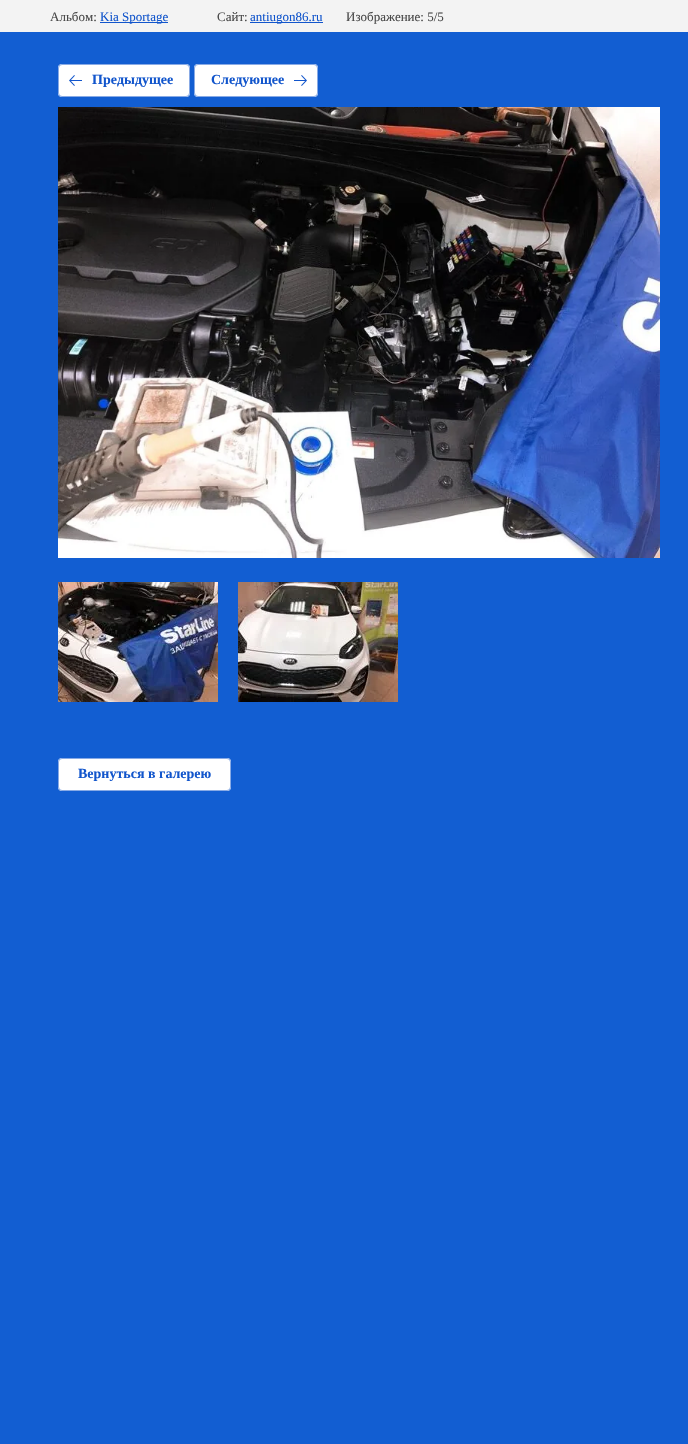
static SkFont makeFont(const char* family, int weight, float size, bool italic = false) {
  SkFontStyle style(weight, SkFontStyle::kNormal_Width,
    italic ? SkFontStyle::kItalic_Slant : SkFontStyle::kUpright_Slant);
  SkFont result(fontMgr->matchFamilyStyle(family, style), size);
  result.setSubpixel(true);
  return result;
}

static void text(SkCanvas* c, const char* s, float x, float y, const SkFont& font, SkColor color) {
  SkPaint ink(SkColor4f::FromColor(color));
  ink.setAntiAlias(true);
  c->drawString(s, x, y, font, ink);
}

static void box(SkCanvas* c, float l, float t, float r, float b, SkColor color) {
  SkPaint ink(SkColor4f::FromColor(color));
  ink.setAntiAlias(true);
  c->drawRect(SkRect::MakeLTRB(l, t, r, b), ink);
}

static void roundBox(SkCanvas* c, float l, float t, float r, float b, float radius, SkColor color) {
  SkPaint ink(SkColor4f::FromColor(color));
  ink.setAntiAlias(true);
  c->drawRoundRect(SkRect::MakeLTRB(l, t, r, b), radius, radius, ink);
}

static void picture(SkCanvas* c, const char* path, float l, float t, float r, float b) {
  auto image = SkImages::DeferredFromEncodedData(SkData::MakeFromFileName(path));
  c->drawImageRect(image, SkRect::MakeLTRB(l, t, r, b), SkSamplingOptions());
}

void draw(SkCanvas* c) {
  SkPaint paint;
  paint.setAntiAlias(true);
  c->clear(0xff125ed2);
  box(c, 0, 0, 688, 32, 0xfff3f3f3);
  SkFont face1 = makeFont("Liberation Serif", 400, 13);
  text(c, "Альбом:", 50, 21, face1, 0xff484848);
  box(c, 100, 22, 168, 23, 0xff1155cc);
  text(c, "Kia Sportage", 100, 21, face1, 0xff1155cc);
  text(c, "Сайт:", 217, 21, face1, 0xff484848);
  box(c, 250, 22, 323, 23, 0xff1155cc);
  text(c, "antiugon86.ru", 250, 21, face1, 0xff1155cc);
  text(c, "Изображение: 5/5", 346, 21, face1, 0xff484848);
  roundBox(c, 58, 64, 190, 97, 4, 0xffffffff);
  paint.setStyle(SkPaint::kStroke_Style);
  paint.setStrokeWidth(1);
  paint.setColor(0x801155cc);
  c->drawRoundRect(SkRect::MakeLTRB(58.5f, 64.5f, 189.5f, 96.5f), 3.5f, 3.5f, paint);
  picture(c, "img_01.png", 69, 75, 82, 86);
  SkFont face2 = makeFont("Liberation Serif", 700, 14);
  text(c, "Предыдущее", 92, 84, face2, 0xff1155cc);
  roundBox(c, 194, 64, 318, 97, 4, 0xffffffff);
  c->drawRoundRect(SkRect::MakeLTRB(194.5f, 64.5f, 317.5f, 96.5f), 3.5f, 3.5f, paint);
  text(c, "Следующее", 211, 84, face2, 0xff1155cc);
  picture(c, "img_02.png", 294, 75, 307, 86);
  picture(c, "img_03.png", 58, 107, 660, 558);
  picture(c, "img_04.png", 58, 582, 218, 702);
  picture(c, "img_05.png", 238, 582, 398, 702);
  roundBox(c, 58, 758, 231, 791, 4, 0xffffffff);
  c->drawRoundRect(SkRect::MakeLTRB(58.5f, 758.5f, 230.5f, 790.5f), 3.5f, 3.5f, paint);
  text(c, "Вернуться в галерею", 78, 778, face2, 0xff1155cc);
}
